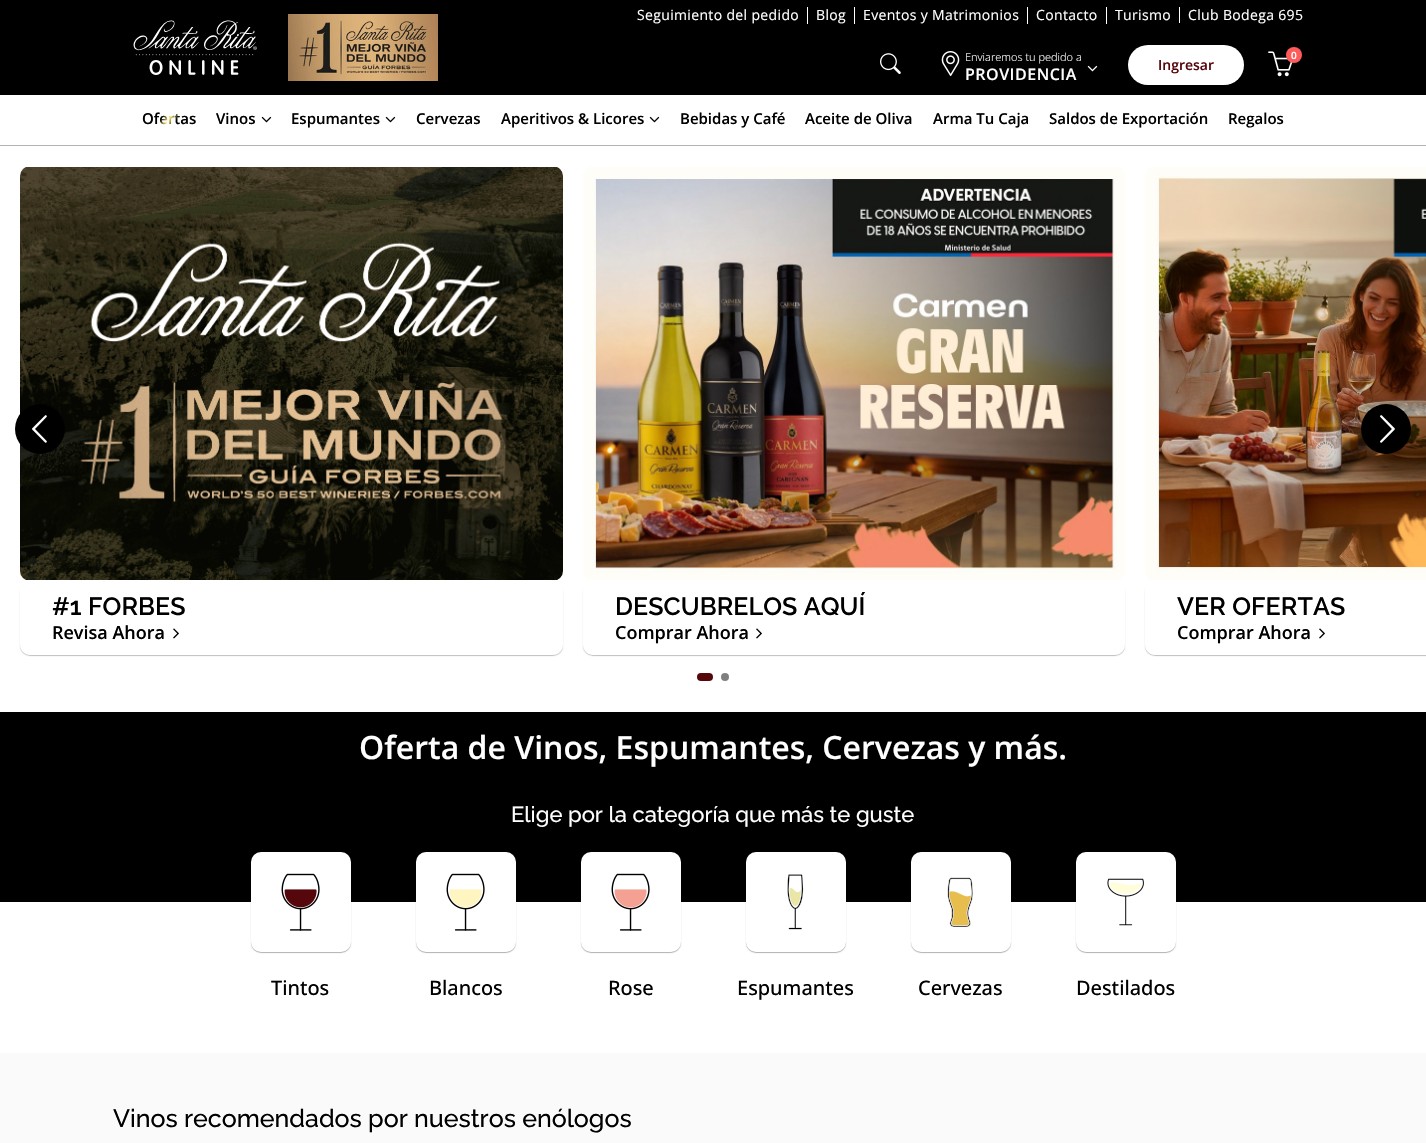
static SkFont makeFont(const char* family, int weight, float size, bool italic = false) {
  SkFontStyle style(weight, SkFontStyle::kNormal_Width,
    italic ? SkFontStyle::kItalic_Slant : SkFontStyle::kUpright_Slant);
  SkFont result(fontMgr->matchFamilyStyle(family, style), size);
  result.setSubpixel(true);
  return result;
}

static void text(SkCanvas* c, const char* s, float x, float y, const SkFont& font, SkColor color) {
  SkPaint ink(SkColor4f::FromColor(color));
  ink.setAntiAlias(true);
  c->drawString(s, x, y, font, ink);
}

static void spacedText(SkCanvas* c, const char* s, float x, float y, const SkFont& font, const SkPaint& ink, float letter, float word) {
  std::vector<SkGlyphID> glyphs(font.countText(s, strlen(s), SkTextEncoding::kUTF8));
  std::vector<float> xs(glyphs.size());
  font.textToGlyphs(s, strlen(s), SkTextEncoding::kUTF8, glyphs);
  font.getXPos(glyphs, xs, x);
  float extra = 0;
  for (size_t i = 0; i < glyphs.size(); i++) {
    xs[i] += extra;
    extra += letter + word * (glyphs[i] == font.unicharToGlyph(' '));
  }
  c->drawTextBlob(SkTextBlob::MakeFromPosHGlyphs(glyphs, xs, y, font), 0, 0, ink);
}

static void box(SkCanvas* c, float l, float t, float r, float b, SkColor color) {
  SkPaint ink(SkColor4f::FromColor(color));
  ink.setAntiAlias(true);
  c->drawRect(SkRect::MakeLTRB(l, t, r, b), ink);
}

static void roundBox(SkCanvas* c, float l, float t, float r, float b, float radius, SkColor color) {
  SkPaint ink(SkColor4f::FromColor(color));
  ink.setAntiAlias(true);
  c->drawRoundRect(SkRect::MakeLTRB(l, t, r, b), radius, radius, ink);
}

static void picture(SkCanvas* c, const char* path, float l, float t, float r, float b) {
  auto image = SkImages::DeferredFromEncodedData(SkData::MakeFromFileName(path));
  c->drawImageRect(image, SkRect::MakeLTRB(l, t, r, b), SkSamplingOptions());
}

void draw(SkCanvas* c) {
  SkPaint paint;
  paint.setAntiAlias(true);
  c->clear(0xffffffff);
  box(c, 0, 0, 1426, 95, 0xff000000);
  SkFont face1 = makeFont("Open Sans", 400, 14);
  paint.setColor(0xffffffff);
  spacedText(c, "Seguimiento del pedido", 637, 20, face1, paint, 0.35f, 0);
  box(c, 807, 7, 808, 24, 0xffffffff);
  spacedText(c, "Blog", 816, 20, face1, paint, 0.35f, 0);
  box(c, 854, 7, 855, 24, 0xffffffff);
  spacedText(c, "Eventos y Matrimonios", 863, 20, face1, paint, 0.35f, 0);
  box(c, 1027, 7, 1028, 24, 0xffffffff);
  spacedText(c, "Contacto", 1036, 20, face1, paint, 0.35f, 0);
  box(c, 1106, 7, 1107, 24, 0xffffffff);
  spacedText(c, "Turismo", 1115, 20, face1, paint, 0.35f, 0);
  box(c, 1179, 7, 1180, 23, 0xffffffff);
  spacedText(c, "Club Bodega 695", 1188, 20, face1, paint, 0.35f, 0);
  picture(c, "img_01.png", 133, 20, 257, 75);
  picture(c, "img_02.png", 288, 14, 438, 81);
  picture(c, "img_03.png", 880, 53, 901, 74);
  picture(c, "img_04.png", 941, 51, 960, 76);
  SkFont face2 = makeFont("Open Sans", 300, 11);
  text(c, "Enviaremos tu pedido a", 965, 61, face2, 0xffffffff);
  SkFont face3 = makeFont("Open Sans", 600, 16);
  spacedText(c, "PROVIDENCIA", 965, 80, face3, paint, 0.5f, 0);
  picture(c, "img_05.png", 1087, 65, 1098, 72);
  roundBox(c, 1128, 45, 1244, 85, 20, 0xffffffff);
  SkFont face4 = makeFont("Open Sans", 600, 14);
  text(c, "Ingresar", 1158, 70, face4, 0xff56070c);
  picture(c, "img_06.png", 1268, 51, 1293, 77);
  paint.setColor(0xffff5b5b);
  c->drawCircle(1294, 55, 8, paint);
  SkFont face5 = makeFont("Open Sans", 600, 10);
  text(c, "0", 1291, 59, face5, 0xffffffff);
  box(c, 0, 145, 1426, 146, 0xffb2b2b2);
  SkFont face6 = makeFont("Open Sans", 600, 15);
  {
    const SkColor colors[] = {0xff000000, 0xff000000, 0xffffea73, 0xff000000, 0xff000000};
    const float stops[] = {0, 0.4f, 0.5f, 0.6f, 1};
    const SkPoint ends[] = {{138, 101}, {200, 137}};
    paint.setShader(SkGradientShader::MakeLinear(ends, colors, stops, 5, SkTileMode::kClamp));
    paint.setAlpha(255);
  }
  c->drawString("Ofertas", 142, 124, face6, paint);
  text(c, "Vinos", 216, 124, face6, 0xff000000);
  picture(c, "img_07.png", 261, 116, 272, 123);
  text(c, "Espumantes", 291, 124, face6, 0xff000000);
  picture(c, "img_07.png", 385, 116, 396, 123);
  text(c, "Cervezas", 416, 124, face6, 0xff000000);
  text(c, "Aperitivos & Licores", 501, 124, face6, 0xff000000);
  picture(c, "img_07.png", 649, 116, 660, 123);
  text(c, "Bebidas y Café", 680, 124, face6, 0xff000000);
  text(c, "Aceite de Oliva", 805, 124, face6, 0xff000000);
  text(c, "Arma Tu Caja", 933, 124, face6, 0xff000000);
  text(c, "Saldos de Exportación", 1049, 124, face6, 0xff000000);
  text(c, "Regalos", 1228, 124, face6, 0xff000000);
  c->save();
  c->clipPath(SkPathBuilder(SkPathFillType::kEvenOdd).moveTo(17, 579).lineTo(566, 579).lineTo(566, 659).lineTo(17, 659).close().moveTo(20, 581).lineTo(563, 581).lineTo(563, 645).cubicTo(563, 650.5f, 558.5f, 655, 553, 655).lineTo(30, 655).cubicTo(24.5f, 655, 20, 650.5f, 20, 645).close().detach(), true);
  paint.setShader(nullptr);
  paint.setColor(0x40000000);
  paint.setMaskFilter(SkMaskFilter::MakeBlur(kNormal_SkBlurStyle, 0.5f));
  c->drawRoundRect(SkRect::MakeLTRB(20, 582, 563, 656), 10, 10, paint);
  paint.setMaskFilter(nullptr);
  c->restore();
  picture(c, "img_10.png", 20, 167, 563, 580);
  paint.setColor(0xff000000);
  c->drawCircle(40, 429, 25, paint);
  picture(c, "img_08.png", 32, 415, 47, 443);
  c->save();
  c->clipPath(SkPathBuilder(SkPathFillType::kEvenOdd).moveTo(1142, 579).lineTo(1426, 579).lineTo(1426, 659).lineTo(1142, 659).close().moveTo(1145, 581).lineTo(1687, 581).lineTo(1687, 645).cubicTo(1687, 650.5f, 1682.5f, 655, 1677, 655).lineTo(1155, 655).cubicTo(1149.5f, 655, 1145, 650.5f, 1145, 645).close().detach(), true);
  paint.setColor(0x40000000);
  paint.setMaskFilter(SkMaskFilter::MakeBlur(kNormal_SkBlurStyle, 0.5f));
  c->drawRoundRect(SkRect::MakeLTRB(1145, 582, 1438, 656), 10, 10, paint);
  paint.setMaskFilter(nullptr);
  c->restore();
  picture(c, "img_13.png", 1145, 167, 1426, 580);
  paint.setColor(0xff000000);
  c->drawCircle(1386, 429, 25, paint);
  picture(c, "img_09.png", 1380, 415, 1395, 443);
  SkFont face7 = makeFont("Raleway", 600, 25);
  spacedText(c, "#1 FORBES", 52, 615, face7, paint, 0.1f, 0);
  SkFont face8 = makeFont("Open Sans", 600, 18);
  text(c, "Revisa Ahora", 52, 639, face8, 0xff000000);
  picture(c, "img_11.png", 173, 628, 179, 639);
  c->save();
  c->clipPath(SkPathBuilder(SkPathFillType::kEvenOdd).moveTo(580, 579).lineTo(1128, 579).lineTo(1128, 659).lineTo(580, 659).close().moveTo(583, 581).lineTo(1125, 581).lineTo(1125, 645).cubicTo(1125, 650.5f, 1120.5f, 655, 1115, 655).lineTo(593, 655).cubicTo(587.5f, 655, 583, 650.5f, 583, 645).close().detach(), true);
  paint.setColor(0x40000000);
  paint.setMaskFilter(SkMaskFilter::MakeBlur(kNormal_SkBlurStyle, 0.5f));
  c->drawRoundRect(SkRect::MakeLTRB(583, 582, 1125, 656), 10, 10, paint);
  paint.setMaskFilter(nullptr);
  c->restore();
  picture(c, "img_12.png", 583, 167, 1125, 580);
  paint.setColor(0xff000000);
  spacedText(c, "DESCUBRELOS AQUÍ", 615, 615, face7, paint, 0.1f, 0);
  text(c, "Comprar Ahora", 615, 639, face8, 0xff000000);
  picture(c, "img_11.png", 756, 628, 762, 639);
  spacedText(c, "VER OFERTAS", 1177, 615, face7, paint, 0.1f, 0);
  text(c, "Comprar Ahora", 1177, 639, face8, 0xff000000);
  picture(c, "img_11.png", 1319, 628, 1325, 639);
  roundBox(c, 697, 673, 713, 681, 4, 0xff56070c);
  paint.setColor(0xff7f7f7f);
  c->drawCircle(725, 677, 4, paint);
  box(c, 0, 712, 1426, 902, 0xff000000);
  SkFont face9 = makeFont("Open Sans", 600, 32);
  text(c, "Oferta de Vinos, Espumantes, Cervezas y más.", 359, 759, face9, 0xffffffff);
  SkFont face10 = makeFont("Raleway", 500, 22);
  text(c, "Elige por la categoría que más te guste", 511, 822, face10, 0xffffffff);
  paint.setColor(0x4d000000);
  paint.setMaskFilter(SkMaskFilter::MakeBlur(kNormal_SkBlurStyle, 0.5f));
  c->drawRoundRect(SkRect::MakeLTRB(251, 853, 351, 953), 10, 10, paint);
  paint.setMaskFilter(nullptr);
  roundBox(c, 251, 852, 351, 952, 10, 0xffffffff);
  picture(c, "img_14.png", 281, 873, 320, 931);
  SkFont face11 = makeFont("Open Sans", 500, 20);
  text(c, "Tintos", 271, 995, face11, 0xff000000);
  paint.setMaskFilter(SkMaskFilter::MakeBlur(kNormal_SkBlurStyle, 0.5f));
  c->drawRoundRect(SkRect::MakeLTRB(416, 853, 516, 953), 10, 10, paint);
  paint.setMaskFilter(nullptr);
  roundBox(c, 416, 852, 516, 952, 10, 0xffffffff);
  picture(c, "img_15.png", 446, 873, 485, 931);
  text(c, "Blancos", 429, 995, face11, 0xff000000);
  paint.setMaskFilter(SkMaskFilter::MakeBlur(kNormal_SkBlurStyle, 0.5f));
  c->drawRoundRect(SkRect::MakeLTRB(581, 853, 681, 953), 10, 10, paint);
  paint.setMaskFilter(nullptr);
  roundBox(c, 581, 852, 681, 952, 10, 0xffffffff);
  picture(c, "img_16.png", 611, 873, 650, 931);
  text(c, "Rose", 608, 995, face11, 0xff000000);
  paint.setMaskFilter(SkMaskFilter::MakeBlur(kNormal_SkBlurStyle, 0.5f));
  c->drawRoundRect(SkRect::MakeLTRB(746, 853, 846, 953), 10, 10, paint);
  paint.setMaskFilter(nullptr);
  roundBox(c, 746, 852, 846, 952, 10, 0xffffffff);
  picture(c, "img_17.png", 787, 874, 804, 930);
  text(c, "Espumantes", 737, 995, face11, 0xff000000);
  paint.setMaskFilter(SkMaskFilter::MakeBlur(kNormal_SkBlurStyle, 0.5f));
  c->drawRoundRect(SkRect::MakeLTRB(911, 853, 1011, 953), 10, 10, paint);
  paint.setMaskFilter(nullptr);
  roundBox(c, 911, 852, 1011, 952, 10, 0xffffffff);
  picture(c, "img_18.png", 947, 877, 973, 927);
  text(c, "Cervezas", 918, 995, face11, 0xff000000);
  paint.setMaskFilter(SkMaskFilter::MakeBlur(kNormal_SkBlurStyle, 0.5f));
  c->drawRoundRect(SkRect::MakeLTRB(1076, 853, 1176, 953), 10, 10, paint);
  paint.setMaskFilter(nullptr);
  roundBox(c, 1076, 852, 1176, 952, 10, 0xffffffff);
  picture(c, "img_19.png", 1107, 878, 1144, 926);
  text(c, "Destilados", 1076, 995, face11, 0xff000000);
  box(c, 0, 1053, 1426, 1143, 0xfffafafa);
  SkFont face12 = makeFont("Raleway", 500, 25);
  text(c, "Vinos recomendados por nuestros enólogos", 113, 1127, face12, 0xff000000);
}
